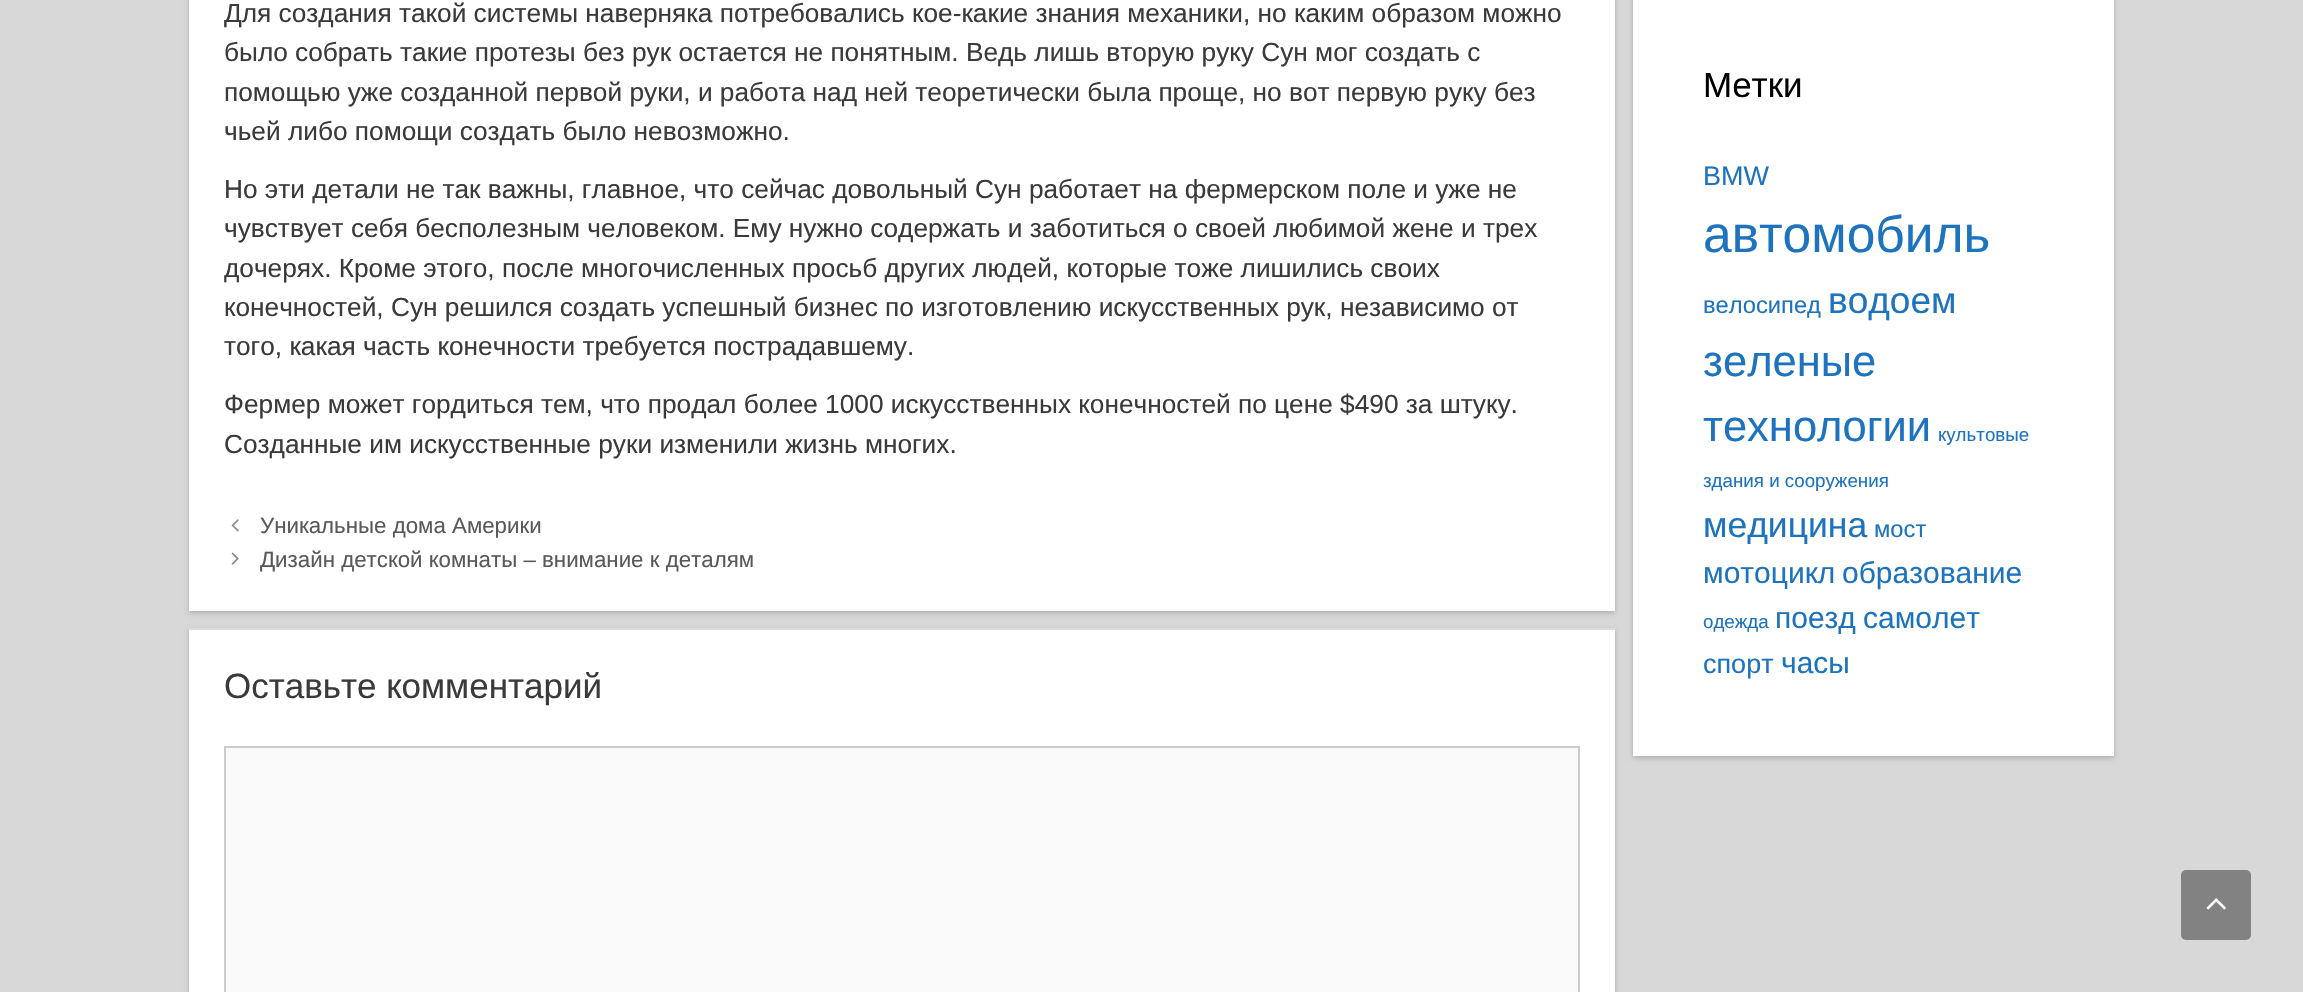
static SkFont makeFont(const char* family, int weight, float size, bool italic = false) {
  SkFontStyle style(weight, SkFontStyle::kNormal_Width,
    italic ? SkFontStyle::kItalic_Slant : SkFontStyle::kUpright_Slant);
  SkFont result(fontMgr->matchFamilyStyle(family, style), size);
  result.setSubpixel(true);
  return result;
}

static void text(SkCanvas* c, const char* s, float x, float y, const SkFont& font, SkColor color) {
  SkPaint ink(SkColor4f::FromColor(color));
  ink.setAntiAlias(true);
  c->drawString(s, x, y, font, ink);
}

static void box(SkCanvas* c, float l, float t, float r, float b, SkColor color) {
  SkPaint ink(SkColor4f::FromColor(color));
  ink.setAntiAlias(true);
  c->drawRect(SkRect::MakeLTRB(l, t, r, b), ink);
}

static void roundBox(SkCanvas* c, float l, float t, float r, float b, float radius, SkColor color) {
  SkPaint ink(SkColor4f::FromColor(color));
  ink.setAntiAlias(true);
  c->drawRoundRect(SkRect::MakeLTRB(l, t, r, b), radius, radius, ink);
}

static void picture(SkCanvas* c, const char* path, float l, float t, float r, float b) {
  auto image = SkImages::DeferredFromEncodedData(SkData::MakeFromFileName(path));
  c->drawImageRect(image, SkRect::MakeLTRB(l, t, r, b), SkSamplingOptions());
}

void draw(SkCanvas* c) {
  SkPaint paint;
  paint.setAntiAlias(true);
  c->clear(0xffd8d8d8);
  paint.setColor(0x33000000);
  paint.setMaskFilter(SkMaskFilter::MakeBlur(kNormal_SkBlurStyle, 2.5f));
  c->drawRect(SkRect::MakeLTRB(189, -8, 1615, 613), paint);
  paint.setMaskFilter(nullptr);
  box(c, 189, 0, 1615, 611, 0xffffffff);
  SkFont face1 = makeFont("Liberation Sans", 400, 26.25f);
  text(c, "Для создания такой системы наверняка потребовались кое-какие знания механики, но каким образом можно", 224, 22, face1, 0xff3a3a3a);
  text(c, "было собрать такие протезы без рук остается не понятным. Ведь лишь вторую руку Сун мог создать с", 224, 61, face1, 0xff3a3a3a);
  text(c, "помощью уже созданной первой руки, и работа над ней теоретически была проще, но вот первую руку без", 224, 101, face1, 0xff3a3a3a);
  text(c, "чьей либо помощи создать было невозможно.", 224, 140, face1, 0xff3a3a3a);
  text(c, "Но эти детали не так важны, главное, что сейчас довольный Сун работает на фермерском поле и уже не", 224, 198, face1, 0xff3a3a3a);
  text(c, "чувствует себя бесполезным человеком. Ему нужно содержать и заботиться о своей любимой жене и трех", 224, 237, face1, 0xff3a3a3a);
  text(c, "дочерях. Кроме этого, после многочисленных просьб других людей, которые тоже лишились своих", 224, 277, face1, 0xff3a3a3a);
  text(c, "конечностей, Сун решился создать успешный бизнес по изготовлению искусственных рук, независимо от", 224, 316, face1, 0xff3a3a3a);
  text(c, "того, какая часть конечности требуется пострадавшему.", 224, 355, face1, 0xff3a3a3a);
  text(c, "Фермер может гордиться тем, что продал более 1000 искусственных конечностей по цене $490 за штуку.", 224, 413, face1, 0xff3a3a3a);
  text(c, "Созданные им искусственные руки изменили жизнь многих.", 224, 453, face1, 0xff3a3a3a);
  picture(c, "img_01.png", 231, 519, 239, 532);
  SkFont face2 = makeFont("Liberation Sans", 400, 22.3f);
  text(c, "Уникальные дома Америки", 260, 533, face2, 0xff595959);
  picture(c, "img_02.png", 231, 552, 239, 565);
  text(c, "Дизайн детской комнаты – внимание к деталям", 260, 567, face2, 0xff595959);
  paint.setMaskFilter(SkMaskFilter::MakeBlur(kNormal_SkBlurStyle, 2.5f));
  c->drawRect(SkRect::MakeLTRB(189, 630, 1615, 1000), paint);
  paint.setMaskFilter(nullptr);
  box(c, 189, 630, 1615, 992, 0xffffffff);
  box(c, 189, 628, 1615, 630, 0xffdddddd);
  SkFont face3 = makeFont("Liberation Sans", 400, 35);
  text(c, "Оставьте комментарий", 224, 698, face3, 0xff3a3a3a);
  paint.setColor(0xfffafafa);
  c->drawRect(SkRect::MakeLTRB(225, 747, 1579, 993), paint);
  paint.setStyle(SkPaint::kStroke_Style);
  paint.setStrokeWidth(2);
  paint.setColor(0xffcccccc);
  c->drawRect(SkRect::MakeLTRB(225, 747, 1579, 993), paint);
  paint.setStyle(SkPaint::kFill_Style);
  paint.setColor(0x33000000);
  paint.setMaskFilter(SkMaskFilter::MakeBlur(kNormal_SkBlurStyle, 2.5f));
  c->drawRect(SkRect::MakeLTRB(1633, -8, 2114, 758), paint);
  paint.setMaskFilter(nullptr);
  box(c, 1633, 0, 2114, 756, 0xffffffff);
  text(c, "Метки", 1703, 97, face3, 0xff000000);
  SkFont face4 = makeFont("Liberation Sans", 400, 27);
  text(c, "BMW", 1703, 185, face4, 0xff1e73be);
  SkFont face5 = makeFont("Liberation Sans", 400, 51.5f);
  text(c, "автомобиль", 1703, 252, face5, 0xff1e73be);
  SkFont face6 = makeFont("Liberation Sans", 400, 23.75f);
  text(c, "велосипед", 1703, 313, face6, 0xff1e73be);
  SkFont face7 = makeFont("Liberation Sans", 400, 37);
  text(c, "водоем", 1828, 313, face7, 0xff1e73be);
  SkFont face8 = makeFont("Liberation Sans", 400, 43.5f);
  text(c, "зеленые", 1703, 376, face8, 0xff1e73be);
  text(c, "технологии", 1703, 441, face8, 0xff1e73be);
  SkFont face9 = makeFont("Liberation Sans", 400, 18.75f);
  text(c, "культовые", 1938, 441, face9, 0xff1e73be);
  text(c, "здания и сооружения", 1703, 487, face9, 0xff1e73be);
  SkFont face10 = makeFont("Liberation Sans", 400, 35.5f);
  text(c, "медицина", 1703, 537, face10, 0xff1e73be);
  text(c, "мост", 1874, 537, face6, 0xff1e73be);
  SkFont face11 = makeFont("Liberation Sans", 400, 30);
  text(c, "мотоцикл", 1703, 583, face11, 0xff1e73be);
  text(c, "образование", 1842, 583, face11, 0xff1e73be);
  text(c, "одежда", 1703, 628, face9, 0xff1e73be);
  text(c, "поезд", 1775, 628, face11, 0xff1e73be);
  text(c, "самолет", 1863, 628, face11, 0xff1e73be);
  text(c, "спорт", 1703, 673, face4, 0xff1e73be);
  text(c, "часы", 1781, 673, face11, 0xff1e73be);
  roundBox(c, 2181, 870, 2251, 940, 5, 0xff828282);
  picture(c, "img_03.png", 2206, 898, 2226, 910);
}
